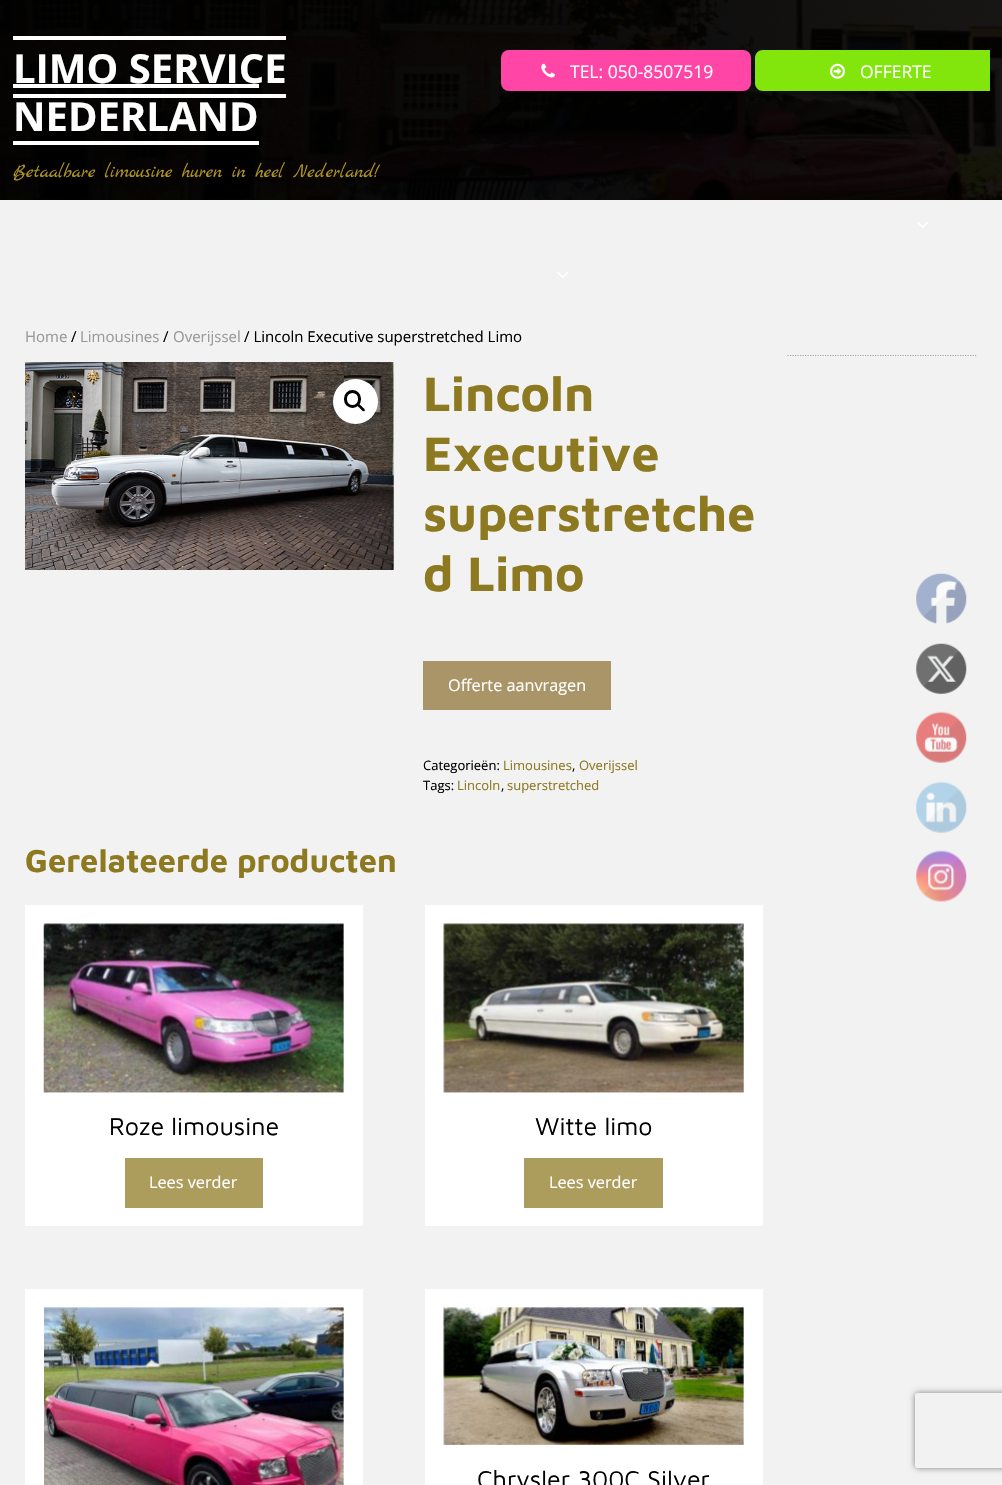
static SkFont makeFont(const char* family, int weight, float size, bool italic = false) {
  SkFontStyle style(weight, SkFontStyle::kNormal_Width,
    italic ? SkFontStyle::kItalic_Slant : SkFontStyle::kUpright_Slant);
  SkFont result(fontMgr->matchFamilyStyle(family, style), size);
  result.setSubpixel(true);
  return result;
}

static void text(SkCanvas* c, const char* s, float x, float y, const SkFont& font, SkColor color) {
  SkPaint ink(SkColor4f::FromColor(color));
  ink.setAntiAlias(true);
  c->drawString(s, x, y, font, ink);
}

static void box(SkCanvas* c, float l, float t, float r, float b, SkColor color) {
  SkPaint ink(SkColor4f::FromColor(color));
  ink.setAntiAlias(true);
  c->drawRect(SkRect::MakeLTRB(l, t, r, b), ink);
}

static void roundBox(SkCanvas* c, float l, float t, float r, float b, float radius, SkColor color) {
  SkPaint ink(SkColor4f::FromColor(color));
  ink.setAntiAlias(true);
  c->drawRoundRect(SkRect::MakeLTRB(l, t, r, b), radius, radius, ink);
}

static void picture(SkCanvas* c, const char* path, float l, float t, float r, float b) {
  auto image = SkImages::DeferredFromEncodedData(SkData::MakeFromFileName(path));
  c->drawImageRect(image, SkRect::MakeLTRB(l, t, r, b), SkSamplingOptions());
}

void draw(SkCanvas* c) {
  SkPaint paint;
  paint.setAntiAlias(true);
  c->clear(0xfff2f2f2);
  picture(c, "img_01.png", 0, 0, 1002, 200);
  SkFont face1 = makeFont("Open Sans", 700, 40);
  text(c, "LIMO SERVICE", 13, 83, face1, 0xffffffff);
  box(c, 13, 36, 286, 40, 0xffffffff);
  box(c, 13, 84, 259, 88, 0xffffffff);
  text(c, "NEDERLAND", 13, 131, face1, 0xffffffff);
  box(c, 13, 94, 286, 98, 0xffffffff);
  box(c, 13, 141, 259, 145, 0xffffffff);
  SkFont face2 = makeFont("Marck Script", 400, 19.5f);
  text(c, "Betaalbare limousine huren in heel Nederland!", 13, 177, face2, 0xffad9224);
  roundBox(c, 501, 50, 751, 91, 8, 0xffff46a6);
  picture(c, "img_02.png", 541, 63, 555, 78);
  SkFont face3 = makeFont("Open Sans", 400, 17.5f);
  text(c, "TEL: 050-8507519", 570, 78, face3, 0xffffffff);
  paint.setColor(0xff82e60d);
  c->drawPath(SkPathBuilder().moveTo(763, 50).lineTo(990, 50).lineTo(990, 91).lineTo(763, 91).cubicTo(758.5f, 91, 755, 87.5f, 755, 83).lineTo(755, 58).cubicTo(755, 53.5f, 758.5f, 50, 763, 50).close().detach(), paint);
  picture(c, "img_03.png", 830, 63, 845, 79);
  text(c, "OFFERTE", 860, 78, face3, 0xffffffff);
  picture(c, "img_04.png", 917, 222, 928, 228);
  picture(c, "img_04.png", 557, 272, 568, 278);
  SkFont face4 = makeFont("Open Sans", 400, 15);
  text(c, "Home", 25, 342, face4, 0xff999999);
  text(c, "/", 71, 342, face4, 0xff000000);
  text(c, "Limousines", 80, 342, face4, 0xff999999);
  text(c, "/", 163, 342, face4, 0xff000000);
  text(c, "Overijssel", 173, 342, face4, 0xff999999);
  text(c, "/ Lincoln Executive superstretched Limo", 244, 342, face4, 0xff000000);
  picture(c, "img_05.png", 25, 362, 394, 570);
  paint.setColor(0xffffffff);
  c->drawCircle(355.5f, 401.5f, 22.5f, paint);
  paint.setStyle(SkPaint::kStroke_Style);
  paint.setStrokeWidth(3);
  paint.setColor(0xff000000);
  c->drawRoundRect(SkRect::MakeLTRB(345.5f, 391.5f, 359.5f, 406.5f), 7, 7, paint);
  paint.setStyle(SkPaint::kFill_Style);
  c->drawPath(SkPathBuilder().moveTo(357.5f, 404).cubicTo(359, 402.5f, 361, 406, 362, 406.5f).cubicTo(362.5f, 407.5f, 366, 409.5f, 364.5f, 411).cubicTo(363, 412.5f, 361, 409, 360, 408.5f).cubicTo(359.5f, 407.5f, 356, 405.5f, 357.5f, 404).close().detach(), paint);
  SkFont face5 = makeFont("Maven Pro", 700, 50);
  text(c, "Lincoln", 423, 411, face5, 0xff8d7920);
  text(c, "Executive", 423, 471, face5, 0xff8d7920);
  text(c, "superstretche", 423, 531, face5, 0xff8d7920);
  text(c, "d Limo", 423, 591, face5, 0xff8d7920);
  box(c, 423, 661, 611, 710, 0xffaa9568);
  SkFont face6 = makeFont("Open Sans", 400, 16.25f);
  text(c, "Offerte aanvragen", 448, 691, face6, 0xffffffff);
  SkFont face7 = makeFont("Open Sans", 400, 13);
  text(c, "Categorieën:", 423, 770, face7, 0xff000000);
  text(c, "Limousines", 503, 770, face7, 0xff8d7920);
  text(c, ",", 572, 770, face7, 0xff000000);
  text(c, "Overijssel", 579, 770, face7, 0xff8d7920);
  text(c, "Tags:", 423, 790, face7, 0xff000000);
  text(c, "Lincoln", 457, 790, face7, 0xff8d7920);
  text(c, ",", 501, 790, face7, 0xff000000);
  text(c, "superstretched", 507, 790, face7, 0xff8d7920);
  SkFont face8 = makeFont("Maven Pro", 700, 32.5f);
  text(c, "Gerelateerde producten", 25, 872, face8, 0xff8d7920);
  box(c, 25, 905, 363, 1226, 0xffffffff);
  picture(c, "img_06.png", 43, 923, 344, 1093);
  SkFont face9 = makeFont("Maven Pro", 400, 25);
  text(c, "Roze limousine", 109, 1135, face9, 0xff000000);
  box(c, 125, 1158, 263, 1208, 0xffad9d5d);
  text(c, "Lees verder", 149, 1188, face6, 0xffffffff);
  box(c, 425, 905, 763, 1226, 0xffffffff);
  picture(c, "img_07.png", 443, 923, 744, 1093);
  text(c, "Witte limo", 535, 1135, face9, 0xff000000);
  box(c, 524, 1158, 663, 1208, 0xffad9d5d);
  text(c, "Lees verder", 549, 1188, face6, 0xffffffff);
  box(c, 25, 1289, 363, 1485, 0xffffffff);
  picture(c, "img_08.png", 44, 1307, 344, 1485);
  box(c, 425, 1289, 763, 1485, 0xffffffff);
  picture(c, "img_09.png", 443, 1307, 744, 1445);
  text(c, "Chrysler 300C Silver", 477, 1488, face9, 0xff000000);
  paint.setStyle(SkPaint::kStroke_Style);
  paint.setStrokeWidth(1.2f);
  paint.setColor(0xffaea29e);
  paint.setPathEffect(SkDashPathEffect::Make({{1.25f, 1.25f}}, 0));
  c->drawPath(SkPathBuilder().moveTo(787.5f, 355.5f).lineTo(977.5f, 355.5f).detach(), paint);
  paint.setPathEffect(nullptr);
  picture(c, "img_10.png", 916, 573, 967, 624);
  picture(c, "img_11.png", 916, 643, 967, 694);
  picture(c, "img_12.png", 916, 711, 967, 763);
  picture(c, "img_13.png", 916, 781, 967, 833);
  picture(c, "img_14.png", 916, 850, 967, 902);
  c->save();
  c->clipPath(SkPathBuilder(SkPathFillType::kEvenOdd).moveTo(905, 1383).lineTo(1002, 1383).lineTo(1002, 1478).lineTo(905, 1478).close().moveTo(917.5f, 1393).lineTo(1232.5f, 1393).cubicTo(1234, 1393, 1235, 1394, 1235, 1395.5f).lineTo(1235, 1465.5f).cubicTo(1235, 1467, 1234, 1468, 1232.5f, 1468).lineTo(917.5f, 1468).cubicTo(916, 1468, 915, 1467, 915, 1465.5f).lineTo(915, 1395.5f).cubicTo(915, 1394, 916, 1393, 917.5f, 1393).close().detach(), true);
  paint.setStyle(SkPaint::kFill_Style);
  paint.setColor(0xff808080);
  paint.setMaskFilter(SkMaskFilter::MakeBlur(kNormal_SkBlurStyle, 3));
  c->drawRoundRect(SkRect::MakeLTRB(915, 1393, 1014, 1468), 2.5f, 2.5f, paint);
  paint.setMaskFilter(nullptr);
  c->restore();
}
